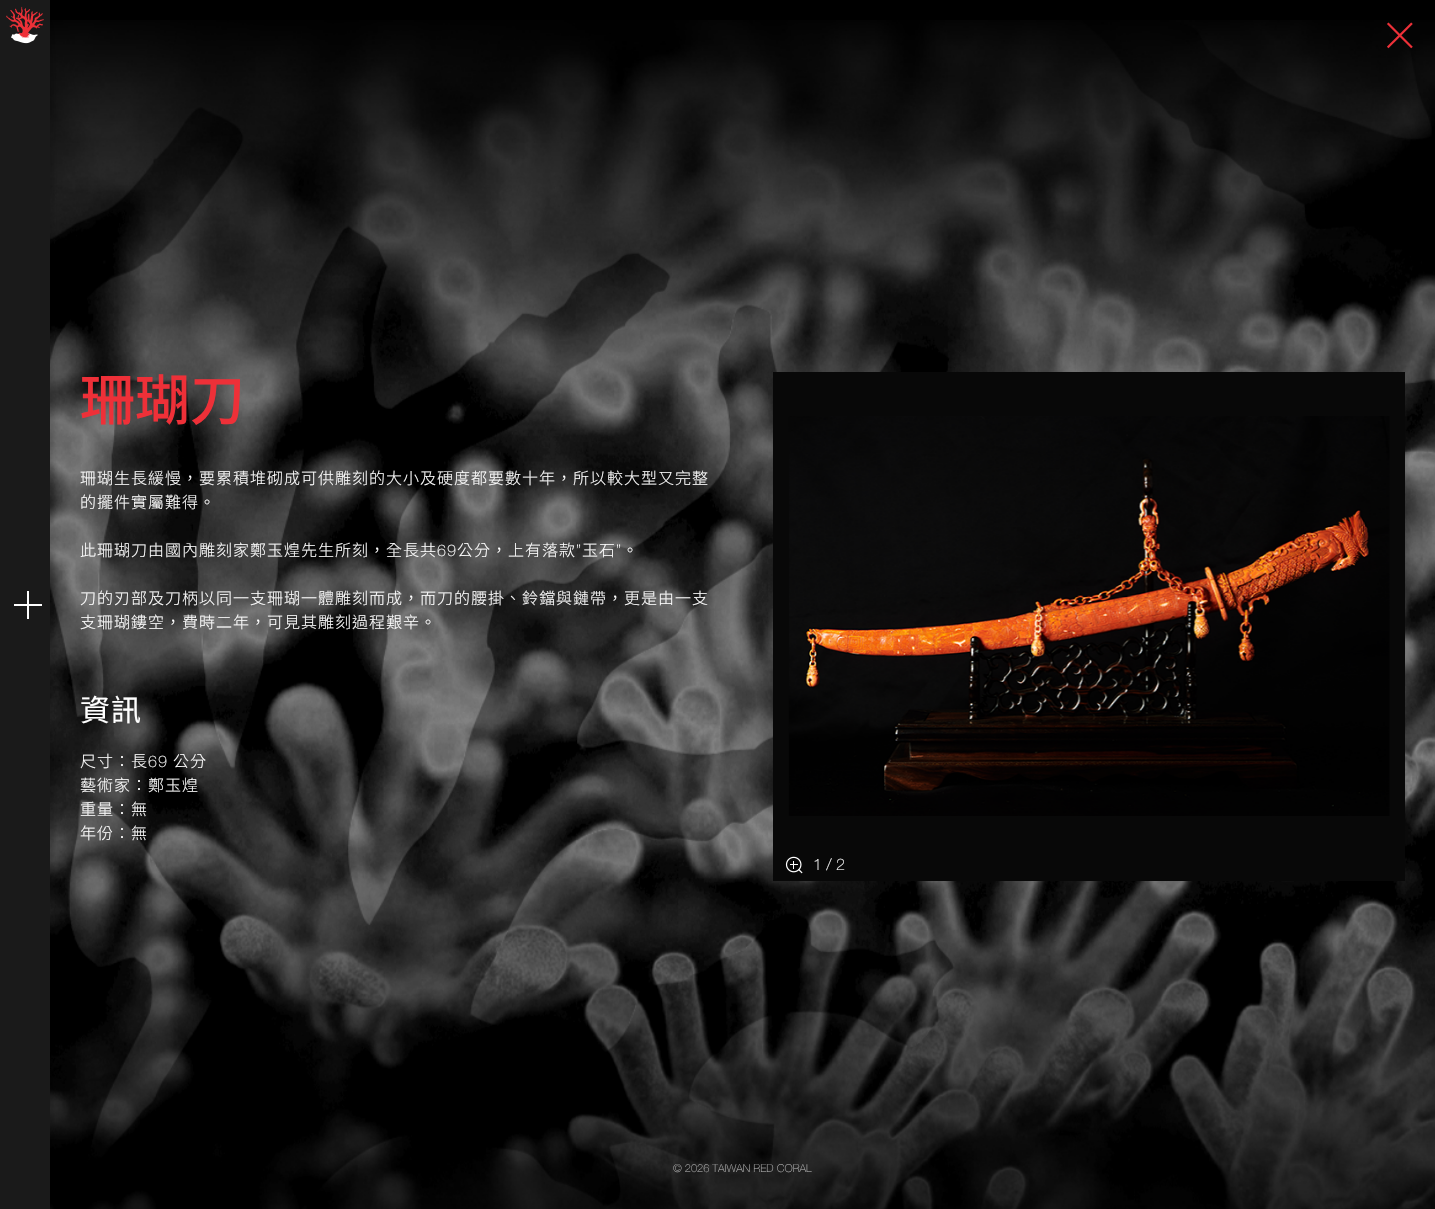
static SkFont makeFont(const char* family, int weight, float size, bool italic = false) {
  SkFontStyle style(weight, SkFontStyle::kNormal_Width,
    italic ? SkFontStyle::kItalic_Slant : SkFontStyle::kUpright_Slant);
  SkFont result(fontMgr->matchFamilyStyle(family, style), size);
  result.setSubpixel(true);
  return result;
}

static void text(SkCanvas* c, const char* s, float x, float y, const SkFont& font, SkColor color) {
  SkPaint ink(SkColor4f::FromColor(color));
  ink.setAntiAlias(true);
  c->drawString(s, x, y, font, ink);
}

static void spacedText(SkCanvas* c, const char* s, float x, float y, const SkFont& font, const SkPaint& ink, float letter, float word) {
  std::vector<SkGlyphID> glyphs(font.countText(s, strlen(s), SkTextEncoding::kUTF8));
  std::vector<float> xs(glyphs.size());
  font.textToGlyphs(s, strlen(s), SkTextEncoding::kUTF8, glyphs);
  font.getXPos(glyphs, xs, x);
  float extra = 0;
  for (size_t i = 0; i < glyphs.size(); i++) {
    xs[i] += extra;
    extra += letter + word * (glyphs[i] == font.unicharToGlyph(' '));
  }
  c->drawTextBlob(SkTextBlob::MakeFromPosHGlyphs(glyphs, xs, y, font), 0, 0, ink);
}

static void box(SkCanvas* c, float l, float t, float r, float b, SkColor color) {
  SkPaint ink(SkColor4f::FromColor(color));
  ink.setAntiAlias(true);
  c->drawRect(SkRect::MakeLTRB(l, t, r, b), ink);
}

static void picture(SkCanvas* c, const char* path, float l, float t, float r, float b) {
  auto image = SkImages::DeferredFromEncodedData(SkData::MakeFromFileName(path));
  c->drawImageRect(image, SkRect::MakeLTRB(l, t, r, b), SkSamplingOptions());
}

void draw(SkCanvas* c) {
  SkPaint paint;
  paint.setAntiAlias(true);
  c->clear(0xff000000);
  picture(c, "img_01.png", 50, 20, 1435, 1209);
  paint.setColor(0x26000000);
  paint.setMaskFilter(SkMaskFilter::MakeBlur(kNormal_SkBlurStyle, 2));
  c->drawRect(SkRect::MakeLTRB(0, -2, 54, 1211), paint);
  paint.setMaskFilter(nullptr);
  box(c, 0, 0, 50, 1209, 0xff1a1a1a);
  picture(c, "img_02.png", 6, 6, 44, 44);
  box(c, 27, 591, 29, 619, 0xffffffff);
  box(c, 14, 604, 42, 606, 0xffffffff);
  picture(c, "img_03.png", 1387, 22, 1413, 49);
  SkFont face1 = makeFont("Noto Sans TC", 500, 55);
  text(c, "珊瑚刀", 80, 420, face1, 0xffee3038);
  SkFont face2 = makeFont("Noto Sans TC", 300, 16);
  paint.setColor(0xffffffff);
  spacedText(c, "珊瑚生長緩慢，要累積堆砌成可供雕刻的大小及硬度都要數十年，所以較大型又完整", 80, 484, face2, paint, 1, 0);
  spacedText(c, "的擺件實屬難得。", 80, 508, face2, paint, 1, 0);
  spacedText(c, "此珊瑚刀由國內雕刻家鄭玉煌先生所刻，全長共", 80, 556, face2, paint, 1, 0);
  SkFont face3 = makeFont("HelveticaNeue", 100, 16);
  spacedText(c, "69", 437, 556, face3, paint, 1, 0);
  spacedText(c, "公分，上有落款", 457, 556, face2, paint, 1, 0);
  spacedText(c, "”", 576, 556, face3, paint, 1, 0);
  spacedText(c, "玉石", 582, 556, face2, paint, 1, 0);
  spacedText(c, "”", 616, 556, face3, paint, 1, 0);
  spacedText(c, "。", 622, 556, face2, paint, 1, 0);
  spacedText(c, "刀的刃部及刀柄以同一支珊瑚一體雕刻而成，而刀的腰掛、鈴鐺與鏈帶，更是由一支", 80, 604, face2, paint, 1, 0);
  spacedText(c, "支珊瑚鏤空，費時二年，可見其雕刻過程艱辛。", 80, 628, face2, paint, 1, 0);
  SkFont face4 = makeFont("Noto Sans TC", 400, 30);
  spacedText(c, "資訊", 80, 721, face4, paint, 1, 0);
  spacedText(c, "尺寸：長", 80, 767, face2, paint, 1, 0);
  spacedText(c, "69", 148, 767, face3, paint, 1, 0);
  spacedText(c, "公分", 173, 767, face2, paint, 1, 0);
  spacedText(c, "藝術家：鄭玉煌", 80, 791, face2, paint, 1, 0);
  spacedText(c, "重量：無", 80, 815, face2, paint, 1, 0);
  spacedText(c, "年份：無", 80, 839, face2, paint, 1, 0);
  picture(c, "img_04.png", 773, 372, 1405, 881);
  picture(c, "img_05.png", 785, 856, 803, 874);
  text(c, "1 / 2", 813, 870, face3, 0xffffffff);
  SkFont face5 = makeFont("HelveticaNeue", 100, 11);
  text(c, "© 2026 TAIWAN RED CORAL", 673, 1172, face5, 0xffb3b3b3);
}
